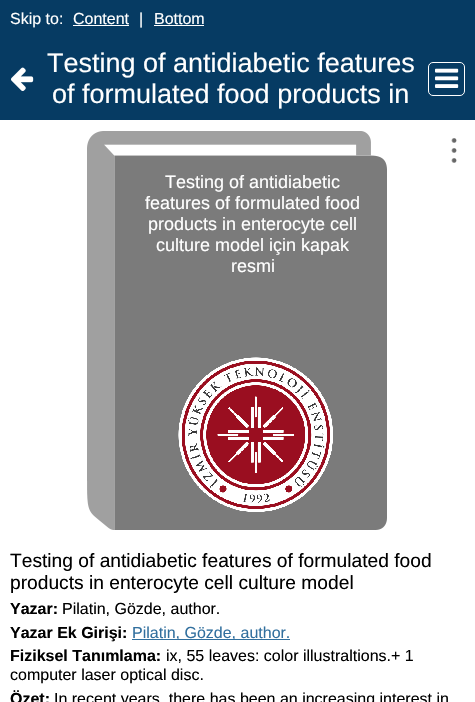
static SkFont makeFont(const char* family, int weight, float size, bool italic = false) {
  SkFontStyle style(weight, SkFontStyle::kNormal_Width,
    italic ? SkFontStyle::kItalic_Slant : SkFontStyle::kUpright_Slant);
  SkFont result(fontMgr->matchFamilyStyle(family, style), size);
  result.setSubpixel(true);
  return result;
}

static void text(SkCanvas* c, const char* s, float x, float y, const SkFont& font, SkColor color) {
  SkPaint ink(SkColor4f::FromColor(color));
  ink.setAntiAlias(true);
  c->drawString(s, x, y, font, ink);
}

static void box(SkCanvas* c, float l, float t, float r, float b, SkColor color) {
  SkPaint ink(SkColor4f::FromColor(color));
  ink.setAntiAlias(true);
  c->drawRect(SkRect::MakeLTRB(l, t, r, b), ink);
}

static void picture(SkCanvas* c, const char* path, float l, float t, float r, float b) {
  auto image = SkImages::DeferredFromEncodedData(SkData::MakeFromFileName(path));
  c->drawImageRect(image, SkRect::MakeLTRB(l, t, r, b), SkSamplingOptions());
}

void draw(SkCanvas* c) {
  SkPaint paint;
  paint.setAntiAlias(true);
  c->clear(0xff063b63);
  SkFont face1 = makeFont("Liberation Sans", 400, 16);
  text(c, "Skip to:", 10, 24, face1, 0xffffffff);
  text(c, "Content", 73, 24, face1, 0xffffffff);
  box(c, 73, 25, 129, 26, 0xffffffff);
  text(c, "|", 139, 24, face1, 0xffffffff);
  text(c, "Bottom", 154, 24, face1, 0xffffffff);
  box(c, 154, 25, 204, 26, 0xffffffff);
  picture(c, "img_01.png", 11, 67, 34, 91);
  SkFont face2 = makeFont("Liberation Sans", 400, 27);
  text(c, "Testing of antidiabetic features", 47, 72, face2, 0xffffffff);
  text(c, "of formulated food products in", 52, 103, face2, 0xffffffff);
  paint.setStyle(SkPaint::kStroke_Style);
  paint.setStrokeWidth(1);
  paint.setColor(0xffffffff);
  c->drawRoundRect(SkRect::MakeLTRB(428.5f, 62.5f, 464.5f, 95.5f), 4.5f, 4.5f, paint);
  picture(c, "img_02.png", 435, 68, 459, 88);
  box(c, 0, 120, 475, 702, 0xffffffff);
  picture(c, "img_03.png", 87, 131, 387, 530);
  SkFont face3 = makeFont("Liberation Sans", 400, 18);
  text(c, "Testing of antidiabetic", 165, 188, face3, 0xffffffff);
  text(c, "features of formulated food", 145, 209, face3, 0xffffffff);
  text(c, "products in enterocyte cell", 148, 230, face3, 0xffffffff);
  text(c, "culture model için kapak", 156, 251, face3, 0xffffffff);
  text(c, "resmi", 231, 272, face3, 0xffffffff);
  picture(c, "img_04.png", 451, 138, 457, 163);
  SkFont face4 = makeFont("Liberation Sans", 400, 19.2f);
  text(c, "Testing of antidiabetic features of formulated food", 10, 567, face4, 0xff000000);
  text(c, "products in enterocyte cell culture model", 10, 589, face4, 0xff000000);
  SkFont face5 = makeFont("Liberation Sans", 700, 16);
  text(c, "Yazar:", 10, 614, face5, 0xff000000);
  text(c, "Pilatin, Gözde, author.", 62, 614, face1, 0xff000000);
  text(c, "Yazar Ek Girişi:", 10, 638, face5, 0xff000000);
  box(c, 132, 639, 290, 640, 0xff316f9e);
  text(c, "Pilatin, Gözde, author.", 132, 638, face1, 0xff316f9e);
  text(c, "Fiziksel Tanımlama:", 10, 661, face5, 0xff000000);
  text(c, "ix, 55 leaves: color illustraltions.+ 1", 166, 661, face1, 0xff000000);
  text(c, "computer laser optical disc.", 10, 680, face1, 0xff000000);
  text(c, "Özet:", 10, 704, face5, 0xff000000);
  text(c, "In recent years, there has been an increasing interest in", 54, 704, face1, 0xff000000);
}
